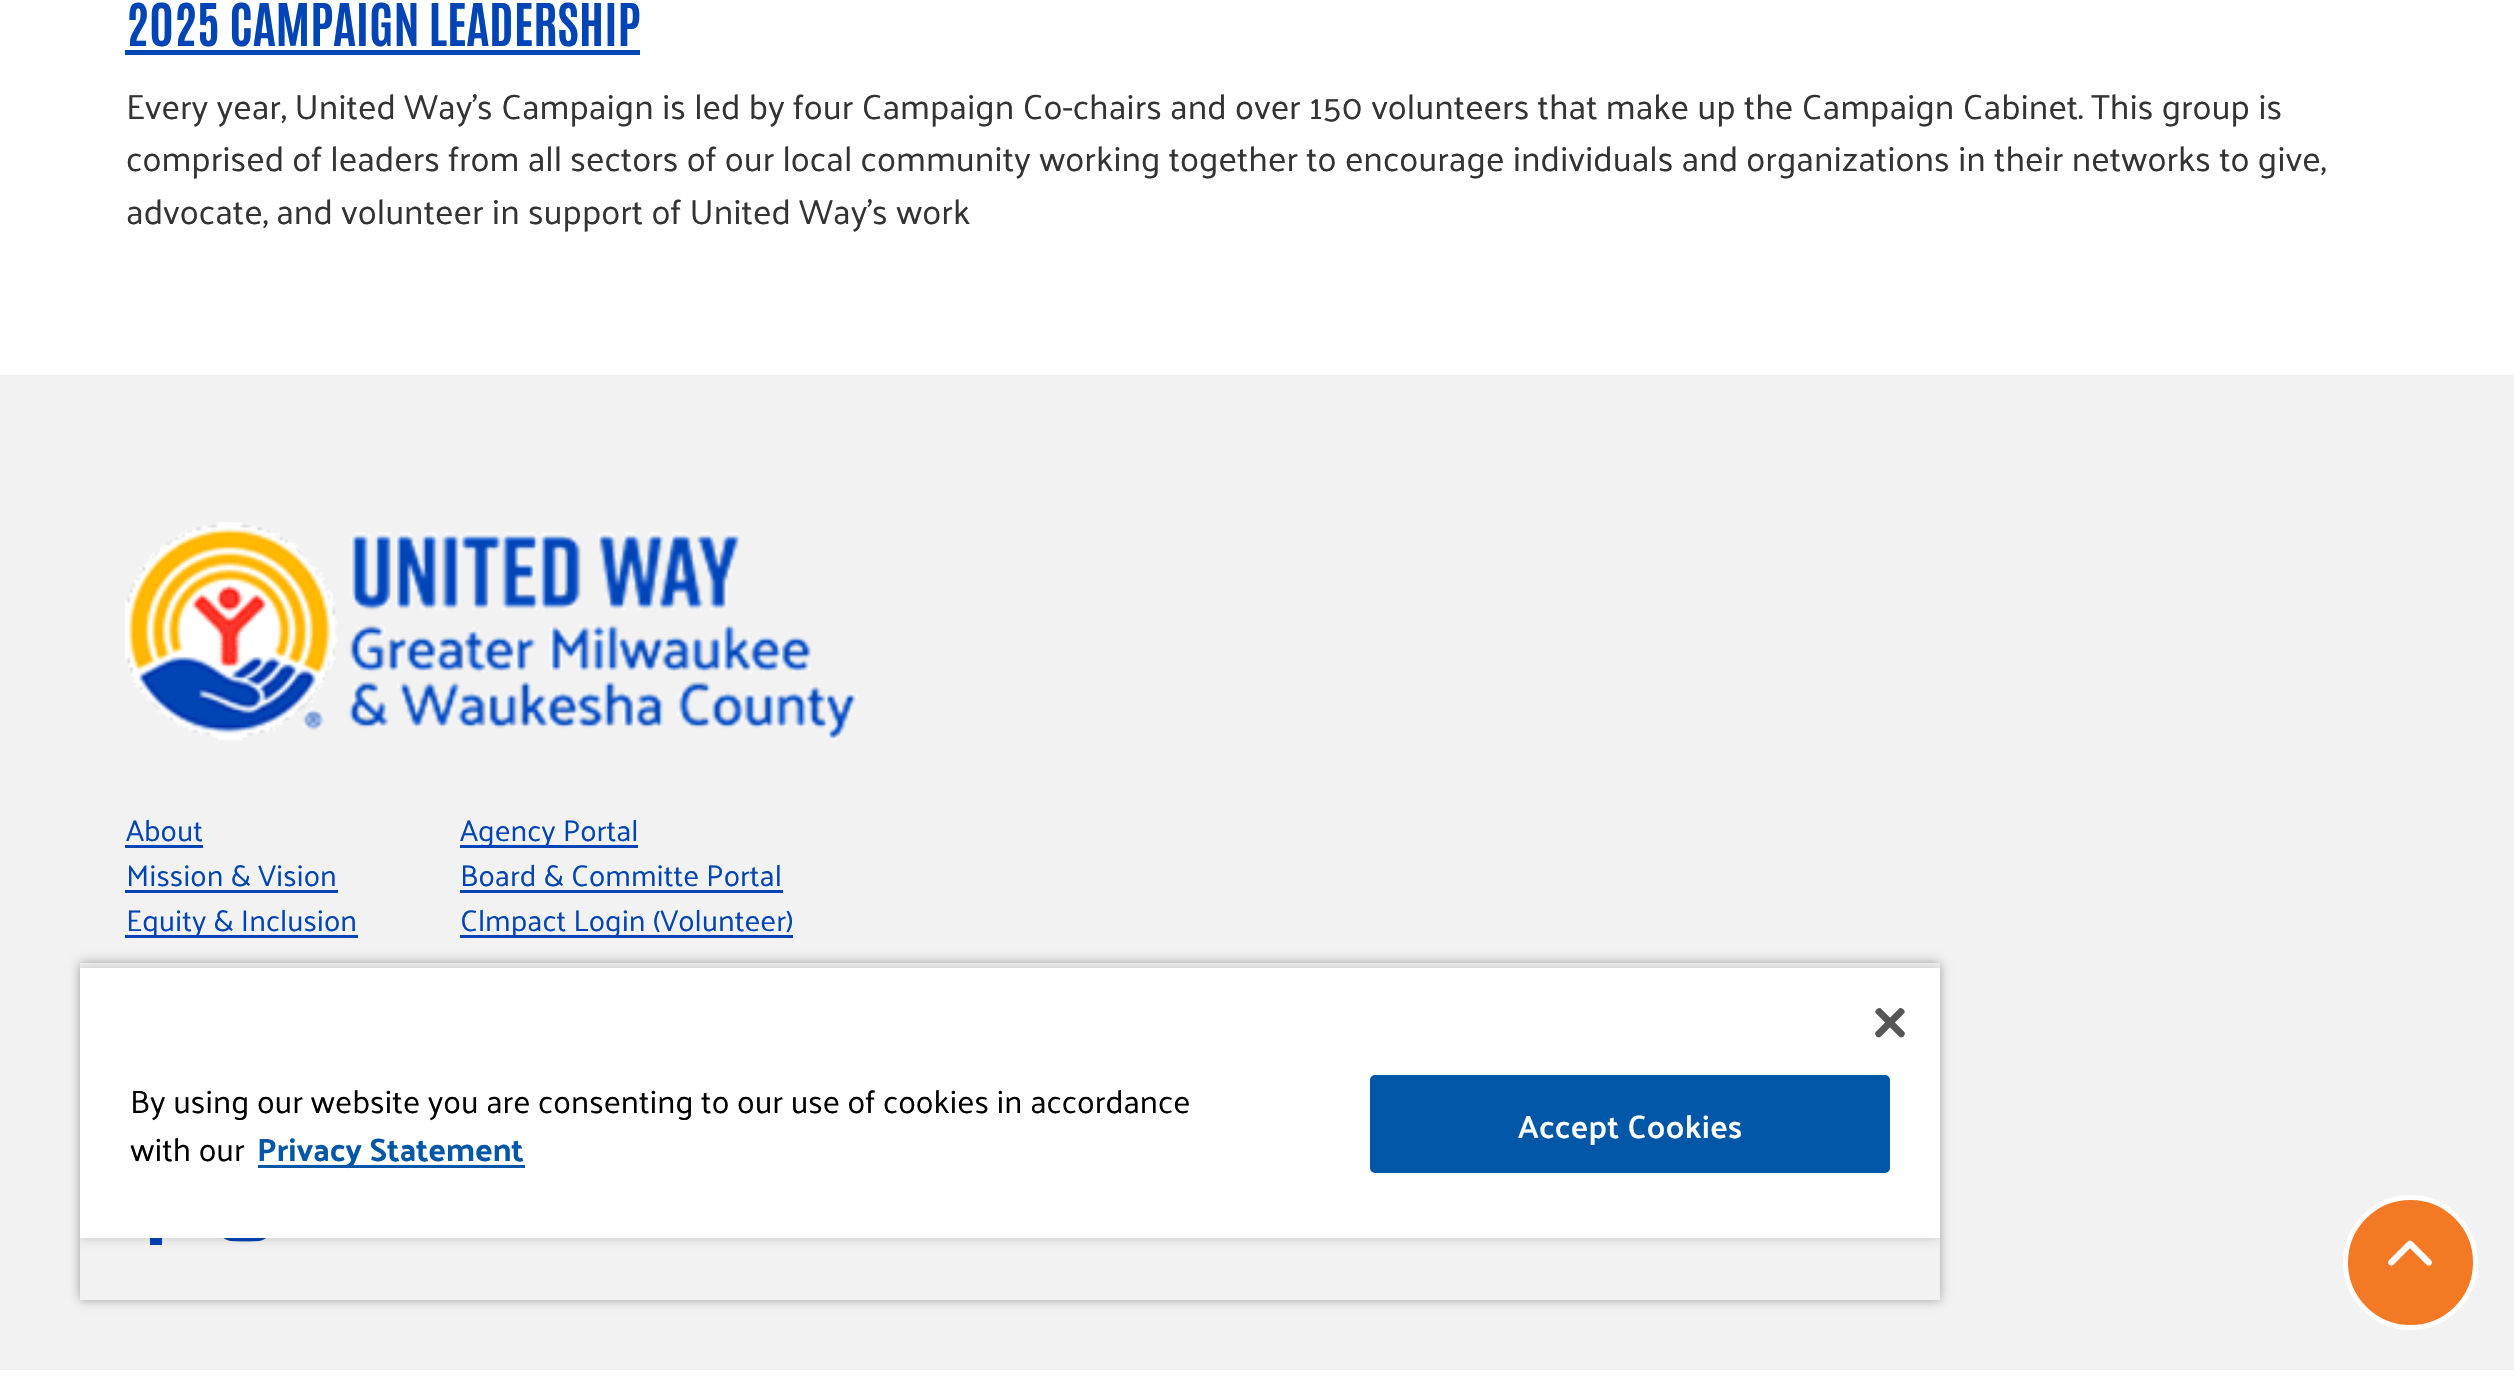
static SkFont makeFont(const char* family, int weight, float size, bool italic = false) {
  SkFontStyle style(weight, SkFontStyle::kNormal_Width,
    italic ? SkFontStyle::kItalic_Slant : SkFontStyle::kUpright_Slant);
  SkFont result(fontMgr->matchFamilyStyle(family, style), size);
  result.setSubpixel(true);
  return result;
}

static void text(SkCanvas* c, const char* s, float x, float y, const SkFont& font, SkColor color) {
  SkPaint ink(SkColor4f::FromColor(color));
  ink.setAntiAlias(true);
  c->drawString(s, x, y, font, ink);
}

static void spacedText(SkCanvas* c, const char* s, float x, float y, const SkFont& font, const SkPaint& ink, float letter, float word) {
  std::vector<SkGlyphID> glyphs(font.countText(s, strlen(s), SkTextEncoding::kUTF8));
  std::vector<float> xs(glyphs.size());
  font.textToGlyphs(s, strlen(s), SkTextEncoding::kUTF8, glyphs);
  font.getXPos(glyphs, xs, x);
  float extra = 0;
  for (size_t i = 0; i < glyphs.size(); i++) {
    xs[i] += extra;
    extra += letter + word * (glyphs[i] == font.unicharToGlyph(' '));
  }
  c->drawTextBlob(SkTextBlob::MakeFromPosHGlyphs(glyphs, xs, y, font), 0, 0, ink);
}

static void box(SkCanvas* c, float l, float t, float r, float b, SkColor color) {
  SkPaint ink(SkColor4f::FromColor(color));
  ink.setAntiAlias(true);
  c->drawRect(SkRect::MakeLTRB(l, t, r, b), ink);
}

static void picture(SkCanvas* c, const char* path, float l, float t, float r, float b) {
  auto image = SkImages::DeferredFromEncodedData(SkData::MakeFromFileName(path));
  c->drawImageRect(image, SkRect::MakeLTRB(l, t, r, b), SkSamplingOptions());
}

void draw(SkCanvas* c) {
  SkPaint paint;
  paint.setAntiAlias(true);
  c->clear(0xffffffff);
  SkFont face1 = makeFont("Antonio", 700, 50);
  text(c, "2025 CAMPAIGN LEADERSHIP", 126, 46, face1, 0xff0044b5);
  box(c, 125, 50, 640, 55, 0xff0044b5);
  SkFont face2 = makeFont("Palanquin", 400, 35);
  text(c, "Every year, United Way’s Campaign is led by four Campaign Co-chairs and over 150 volunteers that make up the Campaign Cabinet. This group is", 126, 119, face2, 0xff333333);
  text(c, "comprised of leaders from all sectors of our local community working together to encourage individuals and organizations in their networks to give,", 126, 171, face2, 0xff333333);
  text(c, "advocate, and volunteer in support of United Way’s work", 126, 224, face2, 0xff333333);
  box(c, 0, 375, 2514, 1370, 0xfff2f2f2);
  picture(c, "img_01.png", 125, 522, 858, 741);
  SkFont face3 = makeFont("Palanquin", 400, 30);
  text(c, "About", 126, 841, face3, 0xff0044b5);
  box(c, 125, 845, 203, 848, 0xff0044b5);
  text(c, "Mission & Vision", 126, 886, face3, 0xff0044b5);
  box(c, 125, 890, 338, 893, 0xff0044b5);
  box(c, 125, 935, 358, 938, 0xff0044b5);
  text(c, "Equity & Inclusion", 126, 931, face3, 0xff0044b5);
  box(c, 460, 845, 638, 848, 0xff0044b5);
  text(c, "Agency Portal", 460, 841, face3, 0xff0044b5);
  text(c, "Board & Committe Portal", 460, 886, face3, 0xff0044b5);
  box(c, 460, 890, 783, 893, 0xff0044b5);
  box(c, 460, 935, 793, 938, 0xff0044b5);
  text(c, "Clmpact Login (Volunteer)", 460, 931, face3, 0xff0044b5);
  paint.setColor(0xff0044b5);
  c->drawPath(SkPathBuilder().moveTo(172, 1218).lineTo(173, 1207).lineTo(162, 1207).cubicTo(162, 1195, 161, 1193, 174, 1193).lineTo(174, 1184).lineTo(163, 1183).cubicTo(150, 1184, 150, 1196, 150, 1207).lineTo(140, 1207).lineTo(140, 1218).lineTo(150, 1218).lineTo(150, 1245).lineTo(162, 1245).lineTo(162, 1218).close().detach(), paint);
  picture(c, "img_02.png", 223, 1238, 266, 1242);
  c->save();
  c->clipPath(SkPathBuilder(SkPathFillType::kEvenOdd).moveTo(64, 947).lineTo(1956, 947).lineTo(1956, 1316).lineTo(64, 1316).close().moveTo(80, 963).lineTo(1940, 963).lineTo(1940, 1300).lineTo(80, 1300).close().detach(), true);
  paint.setColor(0x59000000);
  paint.setMaskFilter(SkMaskFilter::MakeBlur(kNormal_SkBlurStyle, 5));
  c->drawRect(SkRect::MakeLTRB(80, 963, 1940, 1300), paint);
  paint.setMaskFilter(nullptr);
  c->restore();
  c->save();
  c->clipRect(SkRect::MakeLTRB(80, 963, 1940, 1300));
  paint.setColor(0x33000000);
  paint.setMaskFilter(SkMaskFilter::MakeBlur(kNormal_SkBlurStyle, 5));
  c->drawRect(SkRect::MakeLTRB(80, 968, 1940, 1238), paint);
  paint.setMaskFilter(nullptr);
  c->restore();
  box(c, 80, 968, 1940, 1238, 0xffffffff);
  picture(c, "img_03.png", 1875, 1008, 1905, 1038);
  SkFont face4 = makeFont("Palanquin", 400, 32.5f);
  text(c, "By using our website you are consenting to our use of cookies in accordance", 130, 1113, face4, 0xff000000);
  text(c, "with our", 130, 1161, face4, 0xff000000);
  box(c, 258, 1165, 525, 1168, 0xff0056a7);
  SkFont face5 = makeFont("Palanquin", 700, 32.5f);
  text(c, "Privacy Statement", 257, 1161, face5, 0xff0056a7);
  paint.setColor(0xff0056a7);
  c->drawRoundRect(SkRect::MakeLTRB(1371.5f, 1076.5f, 1888.5f, 1171.5f), 3.5f, 3.5f, paint);
  paint.setStyle(SkPaint::kStroke_Style);
  paint.setStrokeWidth(3);
  c->drawRoundRect(SkRect::MakeLTRB(1371.5f, 1076.5f, 1888.5f, 1171.5f), 3.5f, 3.5f, paint);
  SkFont face6 = makeFont("Palanquin", 600, 32.5f);
  paint.setStyle(SkPaint::kFill_Style);
  paint.setColor(0xffffffff);
  spacedText(c, "Accept Cookies", 1518, 1138, face6, paint, 0.3f, 0);
  paint.setColor(0xfff47925);
  c->drawCircle(2410.5f, 1262.5f, 65, paint);
  paint.setStyle(SkPaint::kStroke_Style);
  paint.setStrokeWidth(5);
  paint.setColor(0xffffffff);
  c->drawCircle(2410.5f, 1262.5f, 65, paint);
  picture(c, "img_04.png", 2388, 1240, 2432, 1266);
}
